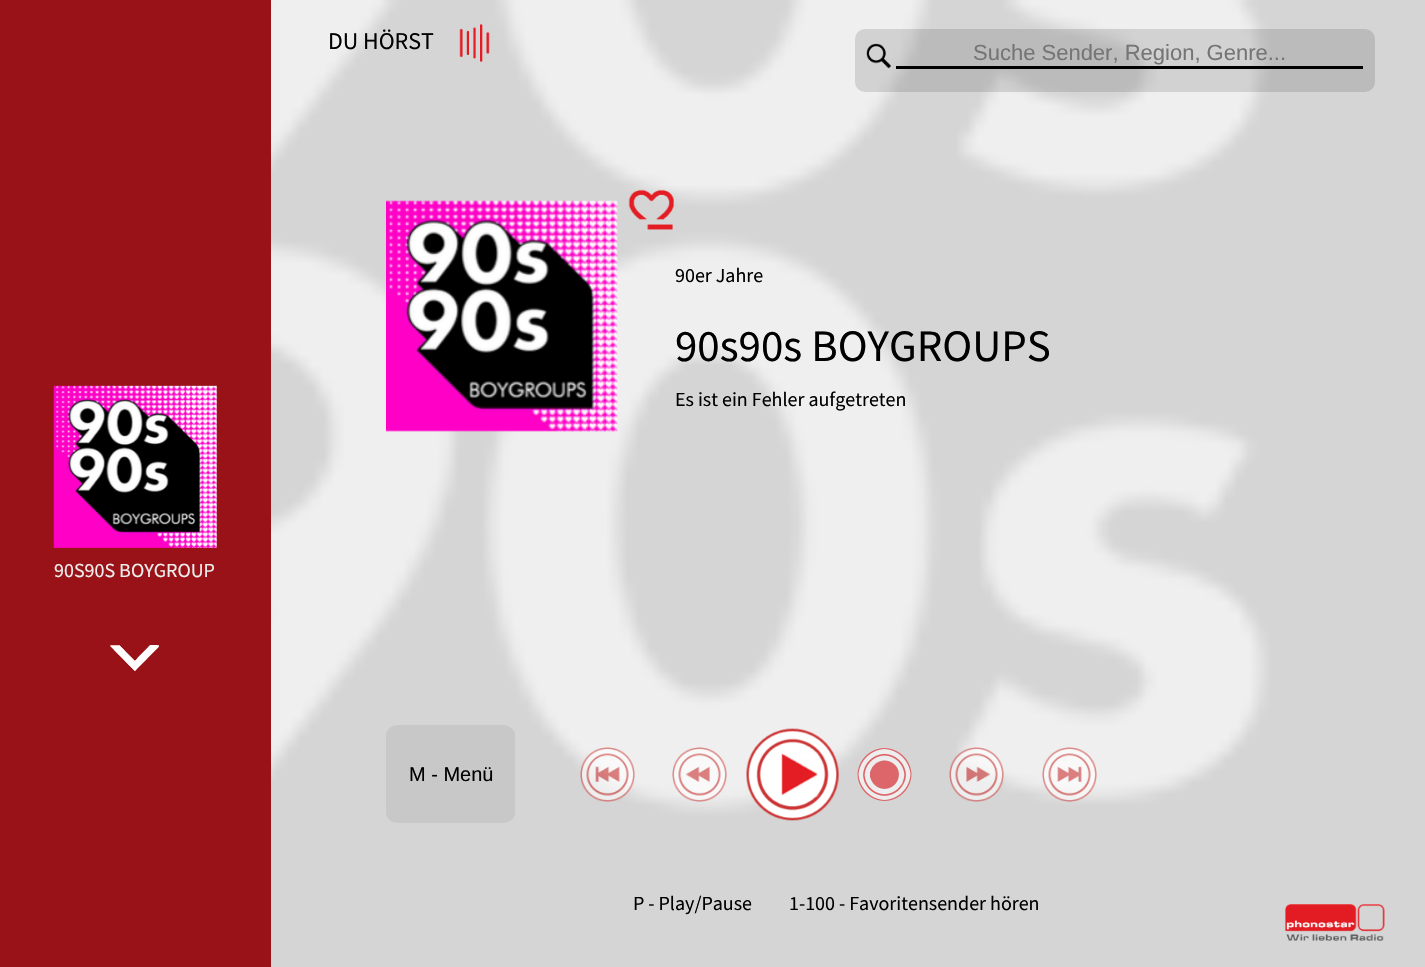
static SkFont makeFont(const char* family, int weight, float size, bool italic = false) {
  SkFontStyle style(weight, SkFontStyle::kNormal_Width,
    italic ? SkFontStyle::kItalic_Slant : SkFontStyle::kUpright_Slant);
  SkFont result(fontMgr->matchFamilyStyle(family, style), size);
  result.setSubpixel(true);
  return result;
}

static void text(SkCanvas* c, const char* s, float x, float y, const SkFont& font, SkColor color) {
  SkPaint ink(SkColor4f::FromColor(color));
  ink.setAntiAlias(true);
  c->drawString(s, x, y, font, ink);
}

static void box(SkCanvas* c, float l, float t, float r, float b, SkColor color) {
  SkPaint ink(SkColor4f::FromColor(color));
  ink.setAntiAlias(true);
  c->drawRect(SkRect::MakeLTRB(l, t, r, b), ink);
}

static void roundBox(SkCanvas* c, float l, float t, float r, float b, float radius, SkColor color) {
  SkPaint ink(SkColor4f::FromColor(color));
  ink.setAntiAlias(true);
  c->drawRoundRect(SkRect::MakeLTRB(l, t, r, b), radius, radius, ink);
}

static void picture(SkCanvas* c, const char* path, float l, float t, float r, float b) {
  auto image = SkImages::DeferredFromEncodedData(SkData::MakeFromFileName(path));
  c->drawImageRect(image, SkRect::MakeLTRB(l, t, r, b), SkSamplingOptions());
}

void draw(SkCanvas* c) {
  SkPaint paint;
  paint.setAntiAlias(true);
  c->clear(0xffeeeeee);
  picture(c, "img_01.png", 271, 0, 1425, 967);
  SkFont face1 = makeFont("Source Sans Pro", 400, 24);
  text(c, "DU HÖRST", 328, 49, face1, 0xff000000);
  picture(c, "img_02.png", 459, 24, 490, 62);
  roundBox(c, 855, 29, 1375, 92, 10, 0x1f000000);
  picture(c, "img_03.png", 866, 43, 891, 69);
  box(c, 896, 66, 1363, 69, 0xff000000);
  SkFont face2 = makeFont("Liberation Sans", 400, 22);
  text(c, "Suche Sender, Region, Genre...", 973, 60, face2, 0xff757575);
  box(c, 0, 0, 271, 967, 0xff991217);
  picture(c, "img_04.png", 53, 385, 217, 548);
  SkFont face3 = makeFont("Source Sans Pro", 400, 20);
  text(c, "90S90S BOYGROUP", 54, 577, face3, 0xffeeeeee);
  picture(c, "img_05.png", 110, 645, 159, 671);
  picture(c, "img_06.png", 386, 200, 618, 432);
  picture(c, "img_07.png", 628, 189, 674, 230);
  text(c, "90er Jahre", 675, 282, face3, 0xff000000);
  SkFont face4 = makeFont("Source Sans Pro", 400, 45);
  text(c, "90s90s BOYGROUPS", 675, 361, face4, 0xff000000);
  text(c, "Es ist ein Fehler aufgetreten", 675, 406, face3, 0xff000000);
  paint.setColor(0xffc8c8c8);
  c->drawPath(SkPathBuilder().moveTo(399, 725).lineTo(502, 725).cubicTo(509, 725, 515, 729, 515, 735).lineTo(515, 813).cubicTo(515, 819, 509, 823, 502, 823).lineTo(399, 823).cubicTo(392, 823, 386, 819, 386, 813).lineTo(386, 735).cubicTo(386, 729, 392, 725, 399, 725).close().detach(), paint);
  SkFont face5 = makeFont("Liberation Sans", 400, 20);
  text(c, "M - Menü", 409, 781, face5, 0xff000000);
  picture(c, "img_08.png", 580, 747, 635, 802);
  picture(c, "img_09.png", 672, 747, 727, 802);
  picture(c, "img_10.png", 746, 728, 839, 821);
  picture(c, "img_11.png", 857, 748, 912, 801);
  picture(c, "img_12.png", 949, 747, 1004, 802);
  picture(c, "img_13.png", 1042, 747, 1097, 802);
  text(c, "P - Play/Pause", 633, 910, face3, 0xff000000);
  text(c, "1-100 - Favoritensender hören", 789, 910, face3, 0xff000000);
  picture(c, "img_14.png", 1285, 904, 1385, 941);
}
